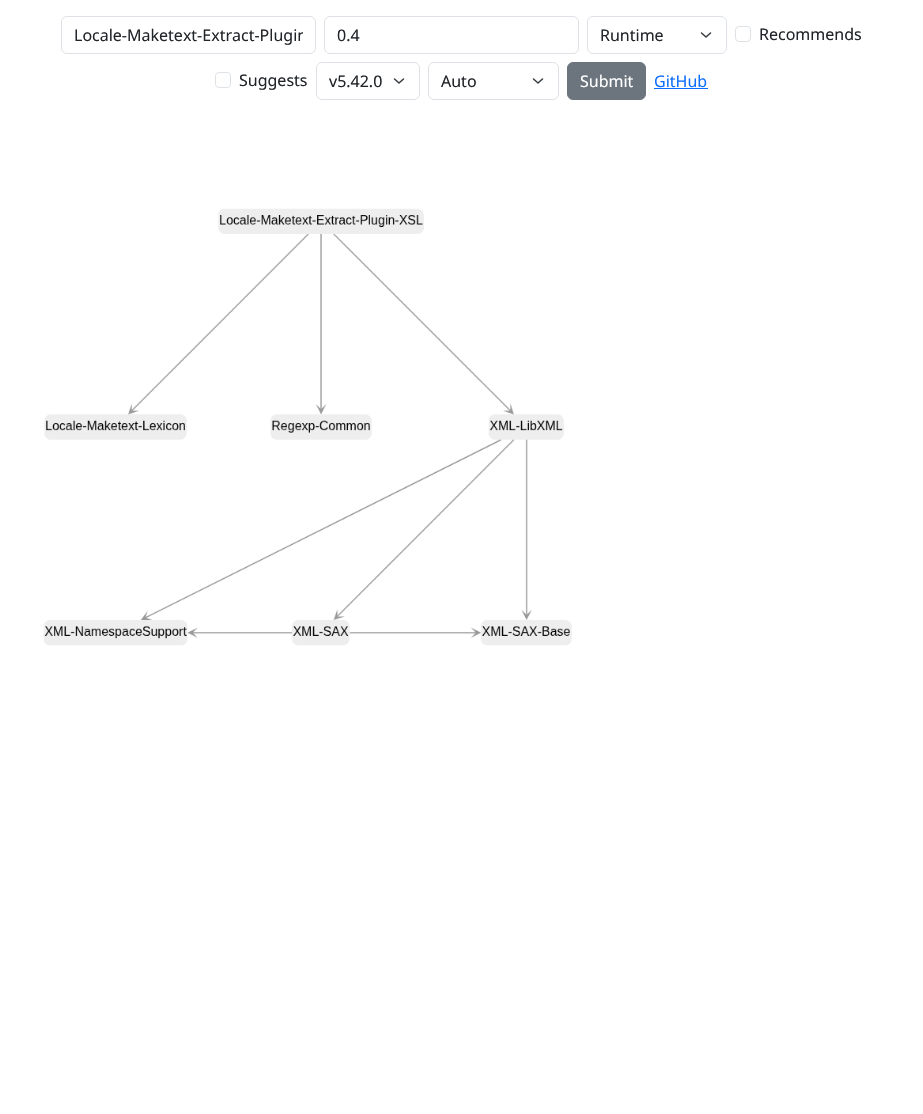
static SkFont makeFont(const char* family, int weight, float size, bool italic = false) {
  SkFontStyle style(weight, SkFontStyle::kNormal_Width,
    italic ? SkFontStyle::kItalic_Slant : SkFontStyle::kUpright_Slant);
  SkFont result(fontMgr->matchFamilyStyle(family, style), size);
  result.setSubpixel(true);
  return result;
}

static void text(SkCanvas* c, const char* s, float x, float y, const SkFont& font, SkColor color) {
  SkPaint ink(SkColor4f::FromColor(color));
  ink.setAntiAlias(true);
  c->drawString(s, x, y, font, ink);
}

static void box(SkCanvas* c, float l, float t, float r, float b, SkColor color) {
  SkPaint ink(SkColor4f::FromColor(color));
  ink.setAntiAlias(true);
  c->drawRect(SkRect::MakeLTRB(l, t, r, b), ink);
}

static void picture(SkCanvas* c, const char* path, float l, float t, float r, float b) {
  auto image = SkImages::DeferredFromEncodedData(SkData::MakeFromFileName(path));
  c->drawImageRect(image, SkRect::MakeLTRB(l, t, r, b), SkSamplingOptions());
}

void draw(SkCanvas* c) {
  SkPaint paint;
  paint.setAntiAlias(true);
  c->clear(0xffffffff);
  paint.setStyle(SkPaint::kStroke_Style);
  paint.setStrokeWidth(1);
  paint.setColor(0xffdee2e6);
  c->drawRoundRect(SkRect::MakeLTRB(61.5f, 16.5f, 315.5f, 53.5f), 5.5f, 5.5f, paint);
  c->save();
  c->clipRect(SkRect::MakeLTRB(74, 23, 303, 47));
  SkFont face1 = makeFont("Noto Sans", 400, 16);
  text(c, "Locale-Maketext-Extract-Plugin", 74, 41, face1, 0xff212529);
  c->restore();
  c->drawRoundRect(SkRect::MakeLTRB(324.5f, 16.5f, 578.5f, 53.5f), 5.5f, 5.5f, paint);
  text(c, "0.4", 337, 41, face1, 0xff212529);
  paint.setStrokeWidth(1.5f);
  paint.setStrokeCap(SkPaint::kRound_Cap);
  paint.setStrokeJoin(SkPaint::kRound_Join);
  paint.setColor(0xff343a40);
  c->drawPath(SkPathBuilder().moveTo(701.5f, 33).lineTo(706, 37).lineTo(710.5f, 33).detach(), paint);
  paint.setStrokeWidth(1);
  paint.setStrokeCap(SkPaint::kButt_Cap);
  paint.setStrokeJoin(SkPaint::kMiter_Join);
  paint.setColor(0xffdee2e6);
  c->drawRoundRect(SkRect::MakeLTRB(587.5f, 16.5f, 726.5f, 53.5f), 5.5f, 5.5f, paint);
  text(c, "Runtime", 600, 41, face1, 0xff212529);
  c->drawRoundRect(SkRect::MakeLTRB(735.5f, 26.5f, 750.5f, 41.5f), 3.5f, 3.5f, paint);
  text(c, "Recommends", 759, 40, face1, 0xff212529);
  c->drawRoundRect(SkRect::MakeLTRB(215.5f, 72.5f, 230.5f, 87.5f), 3.5f, 3.5f, paint);
  text(c, "Suggests", 239, 86, face1, 0xff212529);
  paint.setStrokeWidth(1.5f);
  paint.setStrokeCap(SkPaint::kRound_Cap);
  paint.setStrokeJoin(SkPaint::kRound_Join);
  paint.setColor(0xff343a40);
  c->drawPath(SkPathBuilder().moveTo(394.5f, 79).lineTo(399, 83).lineTo(403.5f, 79).detach(), paint);
  paint.setStrokeWidth(1);
  paint.setStrokeCap(SkPaint::kButt_Cap);
  paint.setStrokeJoin(SkPaint::kMiter_Join);
  paint.setColor(0xffdee2e6);
  c->drawRoundRect(SkRect::MakeLTRB(316.5f, 62.5f, 419.5f, 99.5f), 5.5f, 5.5f, paint);
  text(c, "v5.42.0", 329, 87, face1, 0xff212529);
  paint.setStrokeWidth(1.5f);
  paint.setStrokeCap(SkPaint::kRound_Cap);
  paint.setStrokeJoin(SkPaint::kRound_Join);
  paint.setColor(0xff343a40);
  c->drawPath(SkPathBuilder().moveTo(533.5f, 79).lineTo(538, 83).lineTo(542.5f, 79).detach(), paint);
  paint.setStrokeWidth(1);
  paint.setStrokeCap(SkPaint::kButt_Cap);
  paint.setStrokeJoin(SkPaint::kMiter_Join);
  paint.setColor(0xffdee2e6);
  c->drawRoundRect(SkRect::MakeLTRB(428.5f, 62.5f, 558.5f, 99.5f), 5.5f, 5.5f, paint);
  text(c, "Auto", 441, 87, face1, 0xff212529);
  paint.setStyle(SkPaint::kFill_Style);
  paint.setColor(0xff6c757d);
  c->drawRoundRect(SkRect::MakeLTRB(567.5f, 62.5f, 645.5f, 99.5f), 5.5f, 5.5f, paint);
  paint.setStyle(SkPaint::kStroke_Style);
  c->drawRoundRect(SkRect::MakeLTRB(567.5f, 62.5f, 645.5f, 99.5f), 5.5f, 5.5f, paint);
  text(c, "Submit", 580, 87, face1, 0xffffffff);
  text(c, "GitHub", 654, 87, face1, 0xff0d6efd);
  box(c, 654, 88, 708, 89, 0xff0d6efd);
  picture(c, "img_01.png", 43, 208, 572, 646);
}
